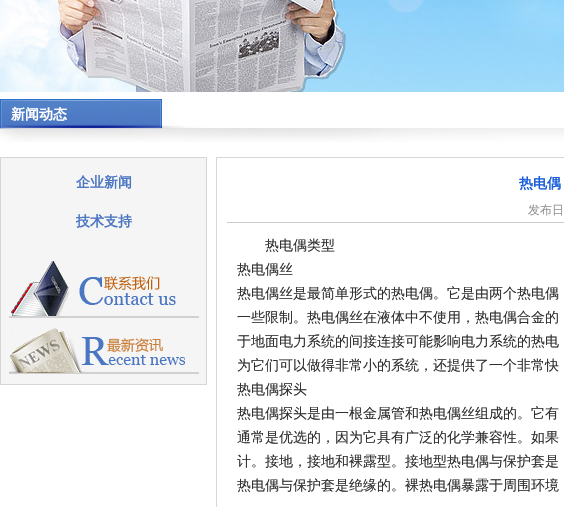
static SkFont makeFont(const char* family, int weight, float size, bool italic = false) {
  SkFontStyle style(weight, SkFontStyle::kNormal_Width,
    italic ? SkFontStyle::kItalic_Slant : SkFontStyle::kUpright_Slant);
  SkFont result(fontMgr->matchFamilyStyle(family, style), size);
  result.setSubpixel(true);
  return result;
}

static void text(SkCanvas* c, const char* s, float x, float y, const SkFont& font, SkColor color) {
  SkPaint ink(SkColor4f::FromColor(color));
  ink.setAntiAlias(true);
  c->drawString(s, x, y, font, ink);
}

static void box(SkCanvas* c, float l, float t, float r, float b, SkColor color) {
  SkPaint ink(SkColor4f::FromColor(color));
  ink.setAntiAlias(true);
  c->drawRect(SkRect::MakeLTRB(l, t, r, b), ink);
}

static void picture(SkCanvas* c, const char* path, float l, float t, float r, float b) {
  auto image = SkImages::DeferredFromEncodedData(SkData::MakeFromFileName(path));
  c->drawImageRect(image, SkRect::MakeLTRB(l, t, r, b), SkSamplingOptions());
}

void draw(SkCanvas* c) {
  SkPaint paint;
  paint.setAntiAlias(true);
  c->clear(0xffffffff);
  picture(c, "img_01.png", 0, 0, 564, 92);
  picture(c, "img_02.png", 0, 99, 564, 142);
  SkFont face1 = makeFont("WenQuanYi Zen Hei", 700, 14);
  text(c, "新闻动态", 11, 119, face1, 0xffffffff);
  paint.setColor(0xfff5f5f5);
  c->drawRect(SkRect::MakeLTRB(0.5f, 157.5f, 206.5f, 384.5f), paint);
  paint.setStyle(SkPaint::kStroke_Style);
  paint.setStrokeWidth(1);
  paint.setColor(0xffd6d6d6);
  c->drawRect(SkRect::MakeLTRB(0.5f, 157.5f, 206.5f, 384.5f), paint);
  text(c, "企业新闻", 76, 187, face1, 0xff4b76c2);
  text(c, "技术支持", 76, 226, face1, 0xff4b76c2);
  picture(c, "img_03.png", 9, 260, 199, 318);
  picture(c, "img_04.png", 9, 326, 199, 374);
  c->drawRect(SkRect::MakeLTRB(216.5f, 157.5f, 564.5f, 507.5f), paint);
  text(c, "热电偶", 519, 188, face1, 0xff185ed9);
  box(c, 227, 222, 564, 223, 0xffcccccc);
  SkFont face2 = makeFont("WenQuanYi Zen Hei", 500, 12);
  text(c, "发布日", 528, 214, face2, 0xff959595);
  SkFont face3 = makeFont("WenQuanYi Zen Hei", 500, 14);
  text(c, "热电偶类型", 265, 250, face3, 0xff2f2f2f);
  text(c, "热电偶丝", 237, 274, face3, 0xff2f2f2f);
  text(c, "热电偶丝是最简单形式的热电偶。它是由两个热电偶", 237, 298, face3, 0xff2f2f2f);
  text(c, "一些限制。热电偶丝在液体中不使用，热电偶合金的", 237, 322, face3, 0xff2f2f2f);
  text(c, "于地面电力系统的间接连接可能影响电力系统的热电", 237, 346, face3, 0xff2f2f2f);
  text(c, "为它们可以做得非常小的系统，还提供了一个非常快", 237, 370, face3, 0xff2f2f2f);
  text(c, "热电偶探头", 237, 394, face3, 0xff2f2f2f);
  text(c, "热电偶探头是由一根金属管和热电偶丝组成的。它有", 237, 418, face3, 0xff2f2f2f);
  text(c, "通常是优选的，因为它具有广泛的化学兼容性。如果", 237, 442, face3, 0xff2f2f2f);
  text(c, "计。接地，接地和裸露型。接地型热电偶与保护套是", 237, 466, face3, 0xff2f2f2f);
  text(c, "热电偶与保护套是绝缘的。裸热电偶暴露于周围环境", 237, 490, face3, 0xff2f2f2f);
}
